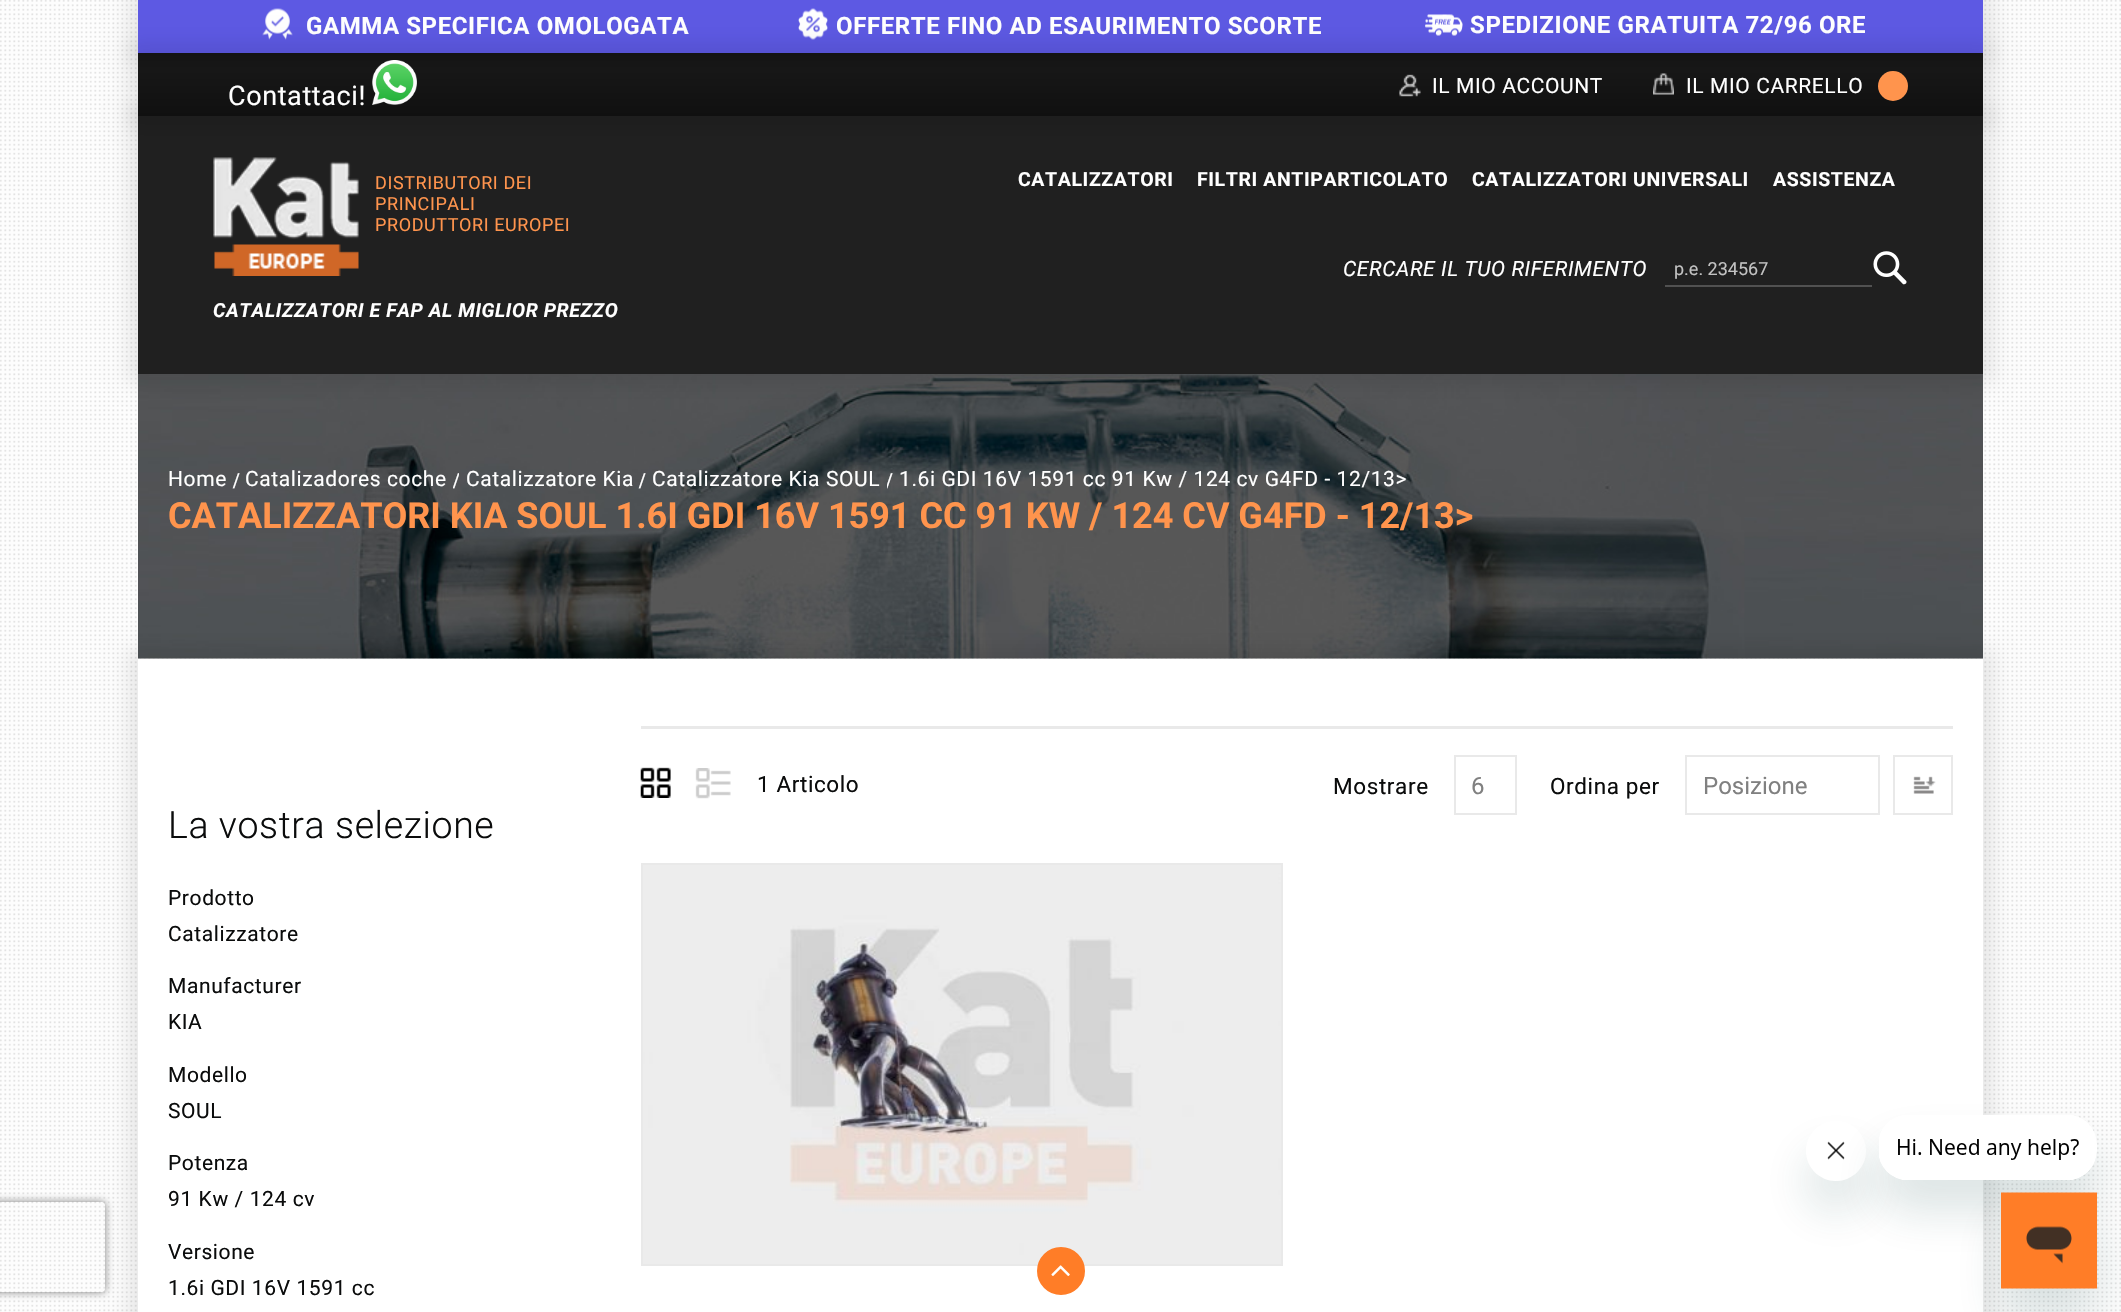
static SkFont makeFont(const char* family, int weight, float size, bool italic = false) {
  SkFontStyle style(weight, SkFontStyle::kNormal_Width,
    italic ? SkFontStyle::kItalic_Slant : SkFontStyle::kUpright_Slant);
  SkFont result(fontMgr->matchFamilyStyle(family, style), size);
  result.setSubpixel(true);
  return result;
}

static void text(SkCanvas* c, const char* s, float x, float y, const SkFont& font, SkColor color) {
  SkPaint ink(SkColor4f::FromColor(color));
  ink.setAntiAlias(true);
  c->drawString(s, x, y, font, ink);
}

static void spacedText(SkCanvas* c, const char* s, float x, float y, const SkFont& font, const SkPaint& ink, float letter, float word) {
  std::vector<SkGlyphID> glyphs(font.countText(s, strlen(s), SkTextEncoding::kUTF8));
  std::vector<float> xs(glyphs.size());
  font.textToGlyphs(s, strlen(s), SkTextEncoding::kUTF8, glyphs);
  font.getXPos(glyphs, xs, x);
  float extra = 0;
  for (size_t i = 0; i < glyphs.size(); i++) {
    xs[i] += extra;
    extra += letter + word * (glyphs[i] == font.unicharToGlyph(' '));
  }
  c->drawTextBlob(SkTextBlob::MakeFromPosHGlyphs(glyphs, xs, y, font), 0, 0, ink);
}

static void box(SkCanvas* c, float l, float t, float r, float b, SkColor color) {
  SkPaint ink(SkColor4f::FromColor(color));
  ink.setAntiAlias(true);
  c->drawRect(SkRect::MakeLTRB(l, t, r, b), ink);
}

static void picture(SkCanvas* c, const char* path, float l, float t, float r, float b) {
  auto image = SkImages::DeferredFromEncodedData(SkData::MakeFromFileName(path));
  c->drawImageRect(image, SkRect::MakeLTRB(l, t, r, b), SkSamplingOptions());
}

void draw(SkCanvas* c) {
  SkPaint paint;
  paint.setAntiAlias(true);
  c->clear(0xffffffff);
  picture(c, "img_01.png", 0, 0, 2121, 1312);
  paint.setColor(0x14000000);
  paint.setMaskFilter(SkMaskFilter::MakeBlur(kNormal_SkBlurStyle, 9));
  c->drawRect(SkRect::MakeLTRB(128, -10, 1994, 63), paint);
  paint.setMaskFilter(nullptr);
  box(c, 138, 0, 1983, 53, 0xff5d59e3);
  picture(c, "img_02.png", 262, 8, 293, 40);
  SkFont face1 = makeFont("Roboto", 700, 24);
  paint.setColor(0xffffffff);
  spacedText(c, "GAMMA SPECIFICA OMOLOGATA", 306, 34, face1, paint, 0.6f, 0);
  picture(c, "img_03.png", 798, 8, 828, 40);
  spacedText(c, "OFFERTE FINO AD ESAURIMENTO SCORTE", 836, 34, face1, paint, 0.6f, 0);
  picture(c, "img_04.png", 1425, 14, 1463, 36);
  spacedText(c, "SPEDIZIONE GRATUITA 72/96 ORE", 1470, 33, face1, paint, 0.6f, 0);
  c->save();
  c->clipPath(SkPathBuilder(SkPathFillType::kEvenOdd).moveTo(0, 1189).lineTo(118, 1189).lineTo(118, 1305).lineTo(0, 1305).close().moveTo(-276, 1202).lineTo(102, 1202).cubicTo(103.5f, 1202, 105, 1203.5f, 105, 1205).lineTo(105, 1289).cubicTo(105, 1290.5f, 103.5f, 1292, 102, 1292).lineTo(-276, 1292).cubicTo(-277.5f, 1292, -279, 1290.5f, -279, 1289).lineTo(-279, 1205).cubicTo(-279, 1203.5f, -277.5f, 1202, -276, 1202).close().detach(), true);
  paint.setColor(0xff808080);
  paint.setMaskFilter(SkMaskFilter::MakeBlur(kNormal_SkBlurStyle, 4));
  c->drawRoundRect(SkRect::MakeLTRB(-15, 1202, 105, 1292), 3, 3, paint);
  paint.setMaskFilter(nullptr);
  c->restore();
  picture(c, "img_10.png", 138, 374, 1983, 659);
  paint.setColor(0x14000000);
  paint.setMaskFilter(SkMaskFilter::MakeBlur(kNormal_SkBlurStyle, 9));
  c->drawRect(SkRect::MakeLTRB(128, 105, 1994, 384), paint);
  paint.setMaskFilter(nullptr);
  box(c, 138, 116, 1983, 374, 0xff202020);
  paint.setMaskFilter(SkMaskFilter::MakeBlur(kNormal_SkBlurStyle, 9));
  c->drawRect(SkRect::MakeLTRB(128, 42, 1994, 126), paint);
  paint.setMaskFilter(nullptr);
  {
    const SkColor colors[] = {0xff101010, 0xff171717, 0xff141414};
    const float stops[] = {0, 0.74f, 1};
    const SkPoint ends[] = {{1061, 116}, {1061, 53}};
    paint.setShader(SkGradientShader::MakeLinear(ends, colors, stops, 3, SkTileMode::kClamp));
    paint.setAlpha(255);
  }
  c->drawRect(SkRect::MakeLTRB(138, 53, 1983, 116), paint);
  SkFont face2 = makeFont("Roboto", 400, 27);
  paint.setShader(nullptr);
  paint.setColor(0xffffffff);
  spacedText(c, "Contattaci!", 228, 105, face2, paint, 0.6f, 0);
  picture(c, "img_05.png", 372, 60, 417, 105);
  picture(c, "img_06.png", 1399, 74, 1421, 97);
  SkFont face3 = makeFont("Roboto", 400, 21);
  spacedText(c, "IL MIO ACCOUNT", 1432, 93, face3, paint, 0.6f, 0);
  picture(c, "img_07.png", 1653, 73, 1674, 95);
  spacedText(c, "IL MIO CARRELLO", 1686, 93, face3, paint, 0.6f, 0);
  paint.setColor(0xffff944d);
  c->drawCircle(1893, 86, 15, paint);
  picture(c, "img_08.png", 213, 157, 359, 276);
  SkFont face4 = makeFont("Roboto", 400, 18);
  spacedText(c, "DISTRIBUTORI DEI", 375, 189, face4, paint, 0.6f, 0);
  spacedText(c, "PRINCIPALI", 375, 210, face4, paint, 0.6f, 0);
  spacedText(c, "PRODUTTORI EUROPEI", 375, 231, face4, paint, 0.6f, 0);
  SkFont face5 = makeFont("Roboto", 700, 19.5f, true);
  paint.setColor(0xffffffff);
  spacedText(c, "CATALIZZATORI E FAP AL MIGLIOR PREZZO", 213, 317, face5, paint, 0.6f, 0);
  SkFont face6 = makeFont("Roboto", 700, 19.5f);
  spacedText(c, "CATALIZZATORI", 1018, 186, face6, paint, 0.6f, 0);
  spacedText(c, "FILTRI ANTIPARTICOLATO", 1197, 186, face6, paint, 0.6f, 0);
  spacedText(c, "CATALIZZATORI UNIVERSALI", 1472, 186, face6, paint, 0.6f, 0);
  spacedText(c, "ASSISTENZA", 1773, 186, face6, paint, 0.6f, 0);
  SkFont face7 = makeFont("Roboto", 400, 21, true);
  spacedText(c, "CERCARE IL TUO RIFERIMENTO", 1343, 276, face7, paint, 0.6f, 0);
  box(c, 1665, 285, 1872, 287, 0xff515151);
  text(c, "p.e. 234567", 1674, 275, face4, 0xffc2c2c2);
  picture(c, "img_09.png", 1873, 251, 1907, 285);
  spacedText(c, "Home", 168, 486, face3, paint, 0.6f, 0);
  SkFont face8 = makeFont("Liberation Serif", 700, 22.5f);
  spacedText(c, "/", 233, 488, face8, paint, 0.6f, 0);
  spacedText(c, "Catalizadores coche", 245, 486, face3, paint, 0.6f, 0);
  c->save();
  c->clipRect(SkRect::MakeLTRB(453, 467, 459, 494));
  spacedText(c, "/", 453, 488, face8, paint, 0.6f, 0);
  c->restore();
  spacedText(c, "Catalizzatore Kia", 466, 486, face3, paint, 0.6f, 0);
  spacedText(c, "/", 639, 488, face8, paint, 0.6f, 0);
  spacedText(c, "Catalizzatore Kia SOUL", 652, 486, face3, paint, 0.6f, 0);
  c->save();
  c->clipRect(SkRect::MakeLTRB(887, 467, 893, 494));
  spacedText(c, "/", 886, 488, face8, paint, 0.6f, 0);
  c->restore();
  spacedText(c, "1.6i GDI 16V 1591 cc 91 Kw / 124 cv G4FD - 12/13>", 899, 486, face3, paint, 0.6f, 0);
  SkFont face9 = makeFont("Roboto", 700, 36);
  text(c, "CATALIZZATORI KIA SOUL 1.6I GDI 16V 1591 CC 91 KW / 124 CV G4FD - 12/13>", 168, 528, face9, 0xffff944d);
  paint.setColor(0x14000000);
  paint.setMaskFilter(SkMaskFilter::MakeBlur(kNormal_SkBlurStyle, 9));
  c->drawRect(SkRect::MakeLTRB(128, 648, 1994, 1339), paint);
  paint.setMaskFilter(nullptr);
  box(c, 138, 659, 1983, 1312, 0xffffffff);
  box(c, 641, 726, 1953, 729, 0xffe9e9e9);
  picture(c, "img_11.png", 640, 767, 671, 798);
  picture(c, "img_12.png", 695, 768, 731, 799);
  SkFont face10 = makeFont("Roboto", 400, 22.5f);
  paint.setColor(0xff0b0c0c);
  spacedText(c, "1 Articolo", 757, 792, face10, paint, 0.6f, 0);
  spacedText(c, "Mostrare", 1333, 794, face10, paint, 0.6f, 0);
  paint.setStyle(SkPaint::kStroke_Style);
  paint.setStrokeWidth(2);
  paint.setColor(0xffe9e9e9);
  c->drawRect(SkRect::MakeLTRB(1455, 756, 1516, 814), paint);
  SkFont face11 = makeFont("Roboto", 400, 24);
  text(c, "6", 1471, 794, face11, 0xff808080);
  paint.setStyle(SkPaint::kFill_Style);
  paint.setColor(0xff0b0c0c);
  spacedText(c, "Ordina per", 1550, 794, face10, paint, 0.6f, 0);
  paint.setStyle(SkPaint::kStroke_Style);
  paint.setColor(0xffe9e9e9);
  c->drawRect(SkRect::MakeLTRB(1686, 756, 1879, 814), paint);
  text(c, "Posizione", 1703, 794, face11, 0xff808080);
  picture(c, "img_13.png", 1913, 776, 1936, 794);
  c->drawRect(SkRect::MakeLTRB(1894, 756, 1952, 814), paint);
  c->drawRect(SkRect::MakeLTRB(642, 864, 1282, 1265), paint);
  picture(c, "img_14.png", 643, 865, 1281, 1264);
  SkFont face12 = makeFont("Roboto", 300, 37.5f);
  paint.setStyle(SkPaint::kFill_Style);
  paint.setColor(0xff0b0c0c);
  spacedText(c, "La vostra selezione", 168, 838, face12, paint, 0.6f, 0);
  spacedText(c, "Prodotto", 168, 905, face3, paint, 0.6f, 0);
  spacedText(c, "Catalizzatore", 168, 941, face3, paint, 0.6f, 0);
  spacedText(c, "Manufacturer", 168, 993, face3, paint, 0.6f, 0);
  spacedText(c, "KIA", 168, 1029, face3, paint, 0.6f, 0);
  spacedText(c, "Modello", 168, 1082, face3, paint, 0.6f, 0);
  spacedText(c, "SOUL", 168, 1118, face3, paint, 0.6f, 0);
  spacedText(c, "Potenza", 168, 1170, face3, paint, 0.6f, 0);
  spacedText(c, "91 Kw / 124 cv", 168, 1206, face3, paint, 0.6f, 0);
  spacedText(c, "Versione", 168, 1259, face3, paint, 0.6f, 0);
  spacedText(c, "1.6i GDI 16V 1591 cc", 168, 1295, face3, paint, 0.6f, 0);
  paint.setColor(0xffff7d27);
  c->drawCircle(1061, 1271, 22.5f, paint);
  paint.setStyle(SkPaint::kStroke_Style);
  paint.setStrokeWidth(3);
  c->drawCircle(1061, 1271, 22.5f, paint);
  picture(c, "img_15.png", 1051, 1265, 1070, 1276);
  c->save();
  c->clipPath(SkPathBuilder(SkPathFillType::kEvenOdd).moveTo(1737, 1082).lineTo(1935, 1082).lineTo(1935, 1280).lineTo(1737, 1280).close().moveTo(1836, 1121).cubicTo(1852.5f, 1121, 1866, 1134.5f, 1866, 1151).cubicTo(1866, 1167.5f, 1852.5f, 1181, 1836, 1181).cubicTo(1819.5f, 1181, 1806, 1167.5f, 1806, 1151).cubicTo(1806, 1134.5f, 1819.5f, 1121, 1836, 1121).close().detach(), true);
  paint.setStyle(SkPaint::kFill_Style);
  paint.setColor(0x2617494d);
  paint.setMaskFilter(SkMaskFilter::MakeBlur(kNormal_SkBlurStyle, 22.5f));
  c->drawRoundRect(SkRect::MakeLTRB(1806, 1151, 1866, 1211), 30, 30, paint);
  paint.setMaskFilter(nullptr);
  c->restore();
  picture(c, "img_17.png", 1825, 1141, 1847, 1181);
  paint.setMaskFilter(SkMaskFilter::MakeBlur(kNormal_SkBlurStyle, 22.5f));
  c->drawRoundRect(SkRect::MakeLTRB(1878, 1145, 2097, 1211), 30, 30, paint);
  paint.setMaskFilter(nullptr);
  picture(c, "img_16.png", 1879, 1115, 2097, 1180);
  paint.setMaskFilter(SkMaskFilter::MakeBlur(kNormal_SkBlurStyle, 22.5f));
  c->drawRect(SkRect::MakeLTRB(2001, 1223, 2097, 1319), paint);
  paint.setMaskFilter(nullptr);
  picture(c, "img_18.png", 2001, 1192, 2097, 1289);
}
